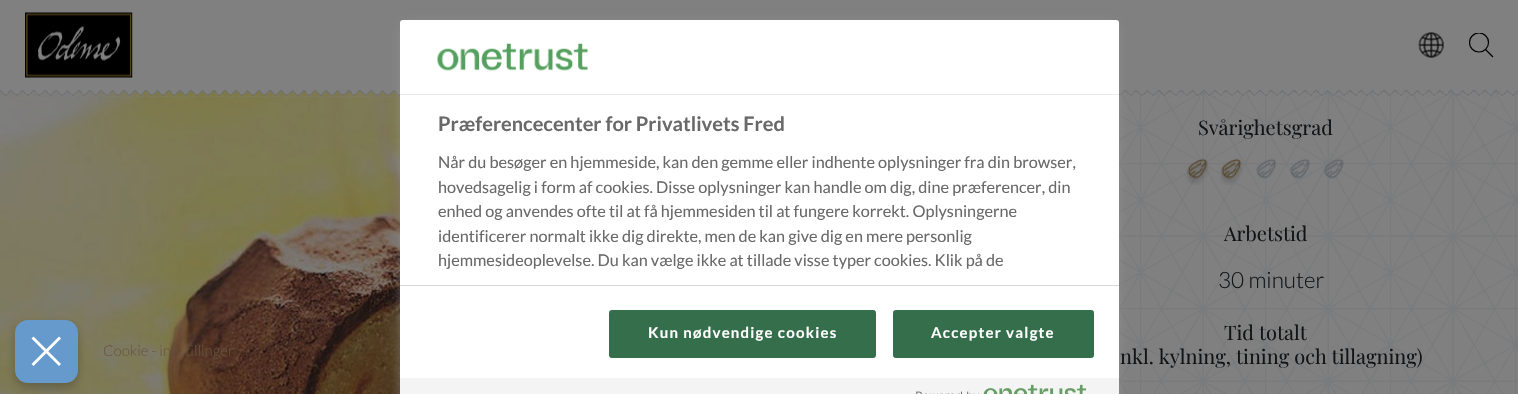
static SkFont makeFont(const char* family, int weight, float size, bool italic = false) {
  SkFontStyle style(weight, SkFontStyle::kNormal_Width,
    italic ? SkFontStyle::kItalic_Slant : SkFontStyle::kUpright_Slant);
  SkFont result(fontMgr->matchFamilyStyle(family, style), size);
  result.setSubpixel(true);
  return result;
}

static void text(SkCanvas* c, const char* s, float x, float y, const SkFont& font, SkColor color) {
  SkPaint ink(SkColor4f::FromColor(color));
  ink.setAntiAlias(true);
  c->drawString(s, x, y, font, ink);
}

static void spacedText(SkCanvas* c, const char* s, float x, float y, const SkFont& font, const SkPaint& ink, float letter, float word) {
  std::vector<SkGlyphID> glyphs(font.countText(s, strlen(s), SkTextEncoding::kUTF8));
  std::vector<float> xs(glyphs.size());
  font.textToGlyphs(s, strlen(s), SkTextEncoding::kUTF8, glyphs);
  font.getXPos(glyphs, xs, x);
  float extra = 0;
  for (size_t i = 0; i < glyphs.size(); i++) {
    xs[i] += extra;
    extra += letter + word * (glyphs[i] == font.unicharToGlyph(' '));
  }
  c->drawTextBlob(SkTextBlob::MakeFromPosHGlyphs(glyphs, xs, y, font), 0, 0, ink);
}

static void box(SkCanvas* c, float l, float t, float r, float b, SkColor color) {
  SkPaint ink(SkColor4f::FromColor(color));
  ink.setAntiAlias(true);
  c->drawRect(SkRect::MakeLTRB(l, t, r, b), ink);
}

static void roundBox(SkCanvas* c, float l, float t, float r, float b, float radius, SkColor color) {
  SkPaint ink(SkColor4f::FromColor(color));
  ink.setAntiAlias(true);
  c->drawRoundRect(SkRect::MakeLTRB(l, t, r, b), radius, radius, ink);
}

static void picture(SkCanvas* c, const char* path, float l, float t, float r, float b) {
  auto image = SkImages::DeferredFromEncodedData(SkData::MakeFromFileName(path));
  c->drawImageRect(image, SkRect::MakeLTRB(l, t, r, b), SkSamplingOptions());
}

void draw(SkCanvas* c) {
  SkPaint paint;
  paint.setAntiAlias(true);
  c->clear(0xff808080);
  picture(c, "img_06.png", 0, 90, 400, 394);
  picture(c, "img_07.png", 1119, 90, 1518, 394);
  picture(c, "img_05.png", 0, 90, 1518, 97);
  paint.setColor(0xff999999);
  paint.setMaskFilter(SkMaskFilter::MakeBlur(kNormal_SkBlurStyle, 6));
  c->drawRect(SkRect::MakeLTRB(404, 26, 1115, 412), paint);
  paint.setMaskFilter(nullptr);
  roundBox(c, 400, 20, 1119, 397, 3, 0xffffffff);
  box(c, 400, 94, 1119, 95, 0xffe9e9e9);
  picture(c, "img_01.png", 437, 43, 588, 71);
  SkFont face1 = makeFont("Lato", 700, 20);
  text(c, "Præferencecenter for Privatlivets Fred", 438, 131, face1, 0xff696969);
  SkFont face2 = makeFont("Lato", 400, 16.25f);
  text(c, "Når du besøger en hjemmeside, kan den gemme eller indhente oplysninger fra din browser,", 438, 168, face2, 0xff696969);
  text(c, "hovedsagelig i form af cookies. Disse oplysninger kan handle om dig, dine præferencer, din", 438, 193, face2, 0xff696969);
  text(c, "enhed og anvendes ofte til at få hjemmesiden til at fungere korrekt. Oplysningerne", 438, 217, face2, 0xff696969);
  text(c, "identificerer normalt ikke dig direkte, men de kan give dig en mere personlig", 438, 242, face2, 0xff696969);
  text(c, "hjemmesideoplevelse. Du kan vælge ikke at tillade visse typer cookies. Klik på de", 438, 266, face2, 0xff696969);
  box(c, 400, 285, 1119, 286, 0xffd8d8d8);
  paint.setColor(0xff346e4a);
  c->drawRoundRect(SkRect::MakeLTRB(609.5f, 310.5f, 875.5f, 357.5f), 2, 2, paint);
  paint.setStyle(SkPaint::kStroke_Style);
  paint.setStrokeWidth(1);
  c->drawRoundRect(SkRect::MakeLTRB(609.5f, 310.5f, 875.5f, 357.5f), 2, 2, paint);
  SkFont face3 = makeFont("Lato", 700, 15);
  paint.setStyle(SkPaint::kFill_Style);
  paint.setColor(0xffffffff);
  spacedText(c, "Kun nødvendige cookies", 648, 338, face3, paint, 1.2f, 0);
  paint.setColor(0xff346e4a);
  c->drawRoundRect(SkRect::MakeLTRB(893.5f, 310.5f, 1093.5f, 357.5f), 2, 2, paint);
  paint.setStyle(SkPaint::kStroke_Style);
  c->drawRoundRect(SkRect::MakeLTRB(893.5f, 310.5f, 1093.5f, 357.5f), 2, 2, paint);
  paint.setStyle(SkPaint::kFill_Style);
  paint.setColor(0xffffffff);
  spacedText(c, "Accepter valgte", 931, 338, face3, paint, 1.2f, 0);
  box(c, 400, 378, 1119, 394, 0xfff4f4f4);
  picture(c, "img_02.png", 916, 384, 1086, 394);
  paint.setColor(0x33000000);
  paint.setMaskFilter(SkMaskFilter::MakeBlur(kNormal_SkBlurStyle, 5));
  c->drawRoundRect(SkRect::MakeLTRB(15, 325, 78, 388), 13, 13, paint);
  paint.setMaskFilter(nullptr);
  roundBox(c, 15, 320, 78, 383, 13, 0xff6699cc);
  paint.setColor(0xffffffff);
  c->drawPath(SkPathBuilder().moveTo(31.5f, 338.5f).lineTo(59, 366).lineTo(61, 364).lineTo(33.5f, 336.5f).close().detach(), paint);
  c->drawPath(SkPathBuilder().moveTo(61, 338.5f).lineTo(33.5f, 366).lineTo(31.5f, 364).lineTo(59, 336.5f).close().detach(), paint);
  SkFont face4 = makeFont("Lato", 300, 15);
  text(c, "Cookie - in", 103, 356, face4, 0xff68553f);
  text(c, "tillinger", 185, 356, face4, 0xff68553f);
  picture(c, "img_03.png", 25, 12, 133, 78);
  picture(c, "img_04.png", 1418, 32, 1444, 58);
  c->save();
  c->clipRect(SkRect::MakeLTRB(1469, 33, 1494, 58));
  paint.setStyle(SkPaint::kStroke_Style);
  paint.setStrokeWidth(1.2f);
  paint.setColor(0xff010101);
  c->drawCircle(1479, 42.5f, 9.5f, paint);
  c->restore();
  paint.setColor(0xff000000);
  c->drawPath(SkPathBuilder().moveTo(1485.5f, 49.5f).lineTo(1493, 57).detach(), paint);
  SkFont face5 = makeFont("Playfair Display", 400, 20);
  text(c, "Svårighetsgrad", 1198, 135, face5, 0xff111315);
  picture(c, "img_08.png", 1186, 158, 1209, 185);
  picture(c, "img_09.png", 1220, 158, 1243, 185);
  picture(c, "img_10.png", 1256, 158, 1277, 179);
  picture(c, "img_11.png", 1290, 158, 1310, 179);
  picture(c, "img_12.png", 1323, 158, 1344, 179);
  text(c, "Arbetstid", 1224, 241, face5, 0xff111315);
  SkFont face6 = makeFont("Lato", 300, 22.5f);
  text(c, "30 minuter", 1218, 288, face6, 0xff111315);
  text(c, "Tid totalt", 1224, 340, face5, 0xff111315);
  text(c, "nkl. kylning, tining och tillagning)", 1120, 364, face5, 0xff111315);
}
